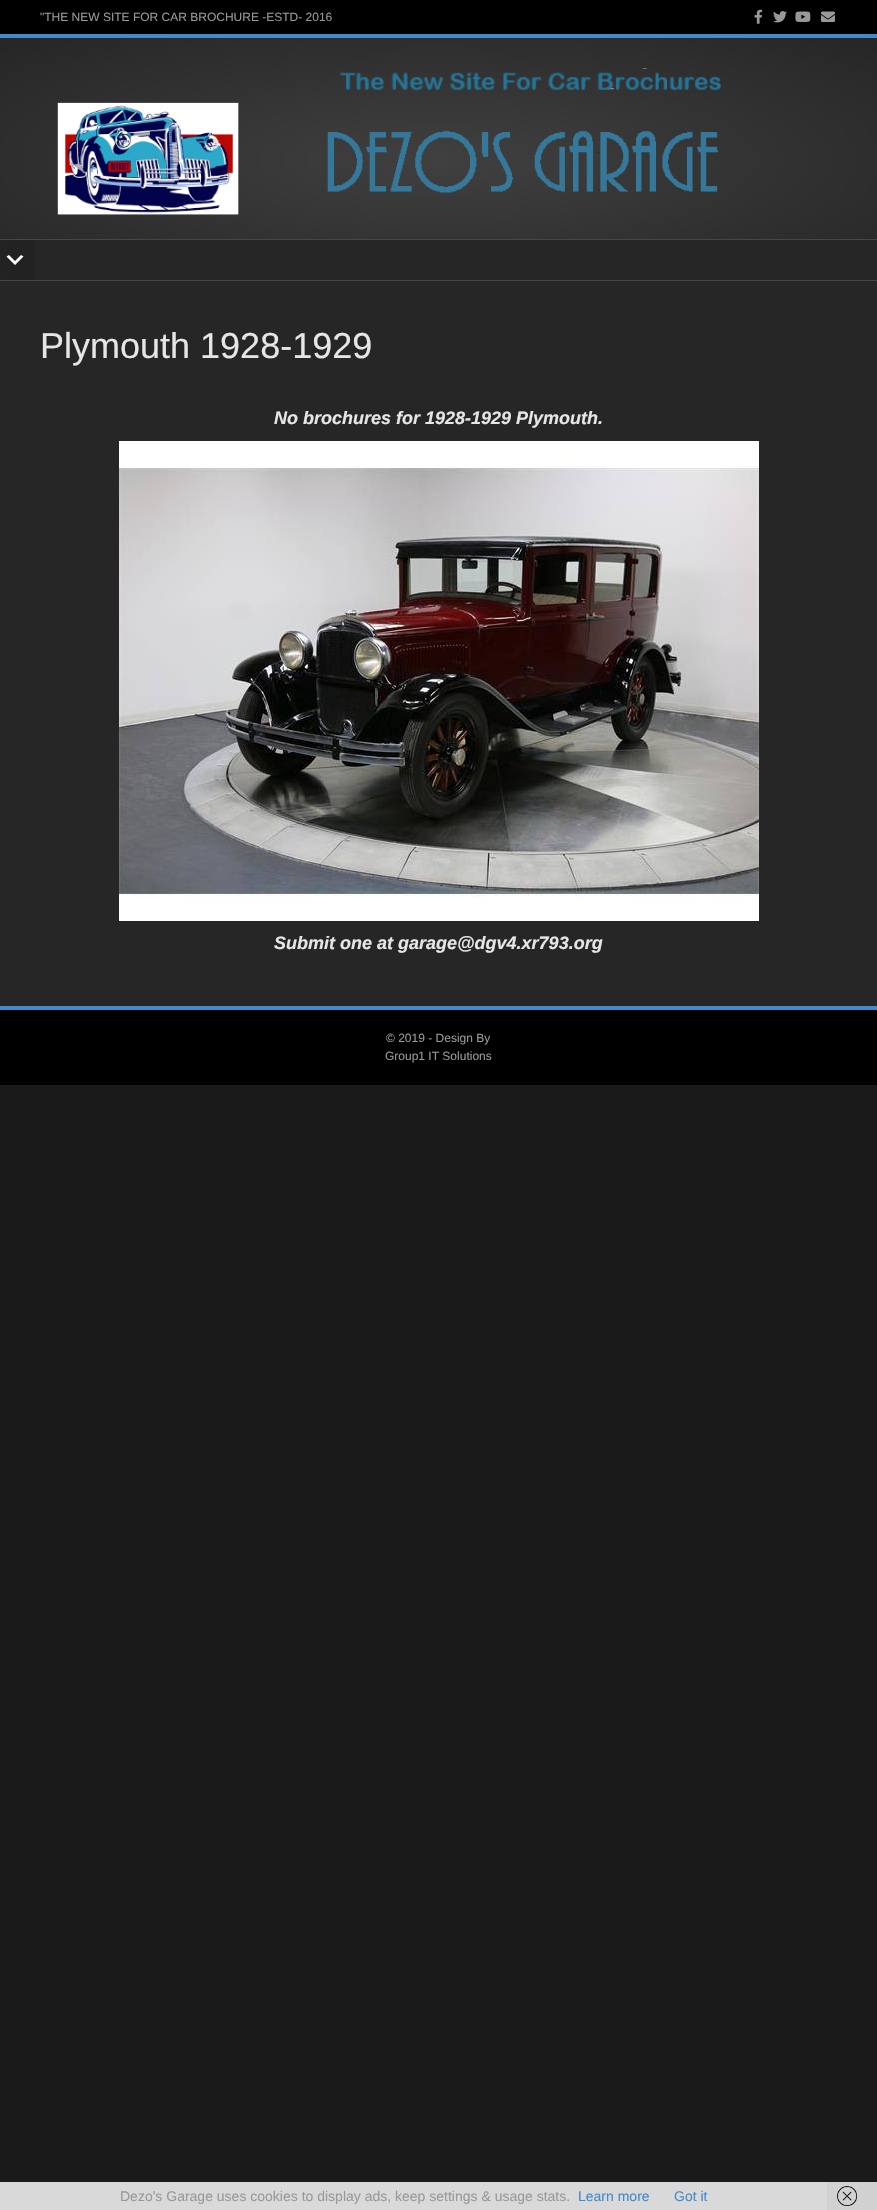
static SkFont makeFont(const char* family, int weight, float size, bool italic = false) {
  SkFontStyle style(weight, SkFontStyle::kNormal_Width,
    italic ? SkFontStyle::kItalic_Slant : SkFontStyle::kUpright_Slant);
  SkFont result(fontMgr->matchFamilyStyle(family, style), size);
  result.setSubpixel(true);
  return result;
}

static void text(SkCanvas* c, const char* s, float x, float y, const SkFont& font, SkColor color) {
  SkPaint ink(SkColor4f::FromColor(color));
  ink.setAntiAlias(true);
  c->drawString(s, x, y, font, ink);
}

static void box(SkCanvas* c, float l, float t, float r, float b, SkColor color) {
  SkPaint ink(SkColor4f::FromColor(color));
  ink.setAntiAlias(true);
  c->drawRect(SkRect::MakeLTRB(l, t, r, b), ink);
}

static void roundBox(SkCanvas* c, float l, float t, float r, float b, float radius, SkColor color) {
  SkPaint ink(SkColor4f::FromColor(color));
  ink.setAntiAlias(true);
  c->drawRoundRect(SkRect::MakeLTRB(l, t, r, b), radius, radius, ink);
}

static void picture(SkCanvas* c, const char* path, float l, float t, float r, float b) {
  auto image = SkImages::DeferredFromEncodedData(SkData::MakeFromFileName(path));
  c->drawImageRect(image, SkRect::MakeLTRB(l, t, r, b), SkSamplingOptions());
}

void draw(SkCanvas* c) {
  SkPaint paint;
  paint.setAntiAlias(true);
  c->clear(0xff1a1a1a);
  box(c, 0, 0, 877, 34, 0xff000000);
  box(c, 0, 34, 877, 38, 0xff428bca);
  SkFont face1 = makeFont("Liberation Sans", 400, 12);
  text(c, "\"THE NEW SITE FOR CAR BROCHURE -ESTD- 2016", 40, 21, face1, 0xff999999);
  picture(c, "img_01.png", 754, 9, 763, 24);
  picture(c, "img_02.png", 773, 11, 787, 23);
  picture(c, "img_03.png", 795, 11, 811, 22);
  picture(c, "img_04.png", 821, 11, 835, 22);
  {
    const SkColor colors[] = {0xff404040, 0xff262626};
    const float stops[] = {0, 1};
    SkMatrix m = SkMatrix::Translate(439, 160).preScale(620, 172);
    paint.setShader(SkGradientShader::MakeRadial({0, 0}, 1, colors, stops, 2, SkTileMode::kClamp, 0, &m));
    paint.setAlpha(255);
  }
  c->drawRect(SkRect::MakeLTRB(0, 38, 877, 239), paint);
  picture(c, "img_05.png", 57, 68, 753, 215);
  box(c, 0, 240, 877, 280, 0xff262626);
  box(c, 0, 239, 877, 240, 0xff474747);
  box(c, 0, 280, 877, 281, 0xff474747);
  roundBox(c, 0, 240, 35, 280, 2, 0xff222222);
  paint.setShader(nullptr);
  paint.setColor(0xffffffff);
  c->drawPath(SkPathBuilder().moveTo(9, 255).lineTo(15, 261).lineTo(21, 255).lineTo(23.5f, 256.5f).lineTo(15, 265).lineTo(6.5f, 256.5f).close().detach(), paint);
  box(c, 0, 281, 877, 1006, 0xff262626);
  SkFont face2 = makeFont("Liberation Sans", 400, 36);
  text(c, "Plymouth 1928-1929", 40, 358, face2, 0xffe6e6e6);
  SkFont face3 = makeFont("Liberation Sans", 700, 18, true);
  text(c, "No brochures for 1928-1929 Plymouth.", 274, 424, face3, 0xffe6e6e6);
  picture(c, "img_06.png", 119, 441, 759, 921);
  text(c, "Submit one at garage@dgv4.xr793.org", 274, 949, face3, 0xffe6e6e6);
  box(c, 0, 1010, 877, 1085, 0xff000000);
  box(c, 0, 1006, 877, 1010, 0xff428bca);
  text(c, "© 2019 - Design By", 386, 1042, face1, 0xff999999);
  text(c, "Group1 IT Solutions", 385, 1060, face1, 0xff999999);
  box(c, 0, 2182, 827, 2210, 0xffd9d9d9);
  SkFont face4 = makeFont("Liberation Sans", 400, 14);
  text(c, "Dezo's Garage uses cookies to display ads, keep settings & usage stats.", 120, 2201, face4, 0xff999999);
  text(c, "Learn more", 578, 2201, face4, 0xff428bca);
  text(c, "Got it", 674, 2201, face4, 0xff428bca);
  box(c, 827, 2182, 877, 2210, 0xffd1d1d1);
  picture(c, "img_07.png", 837, 2186, 857, 2206);
}
